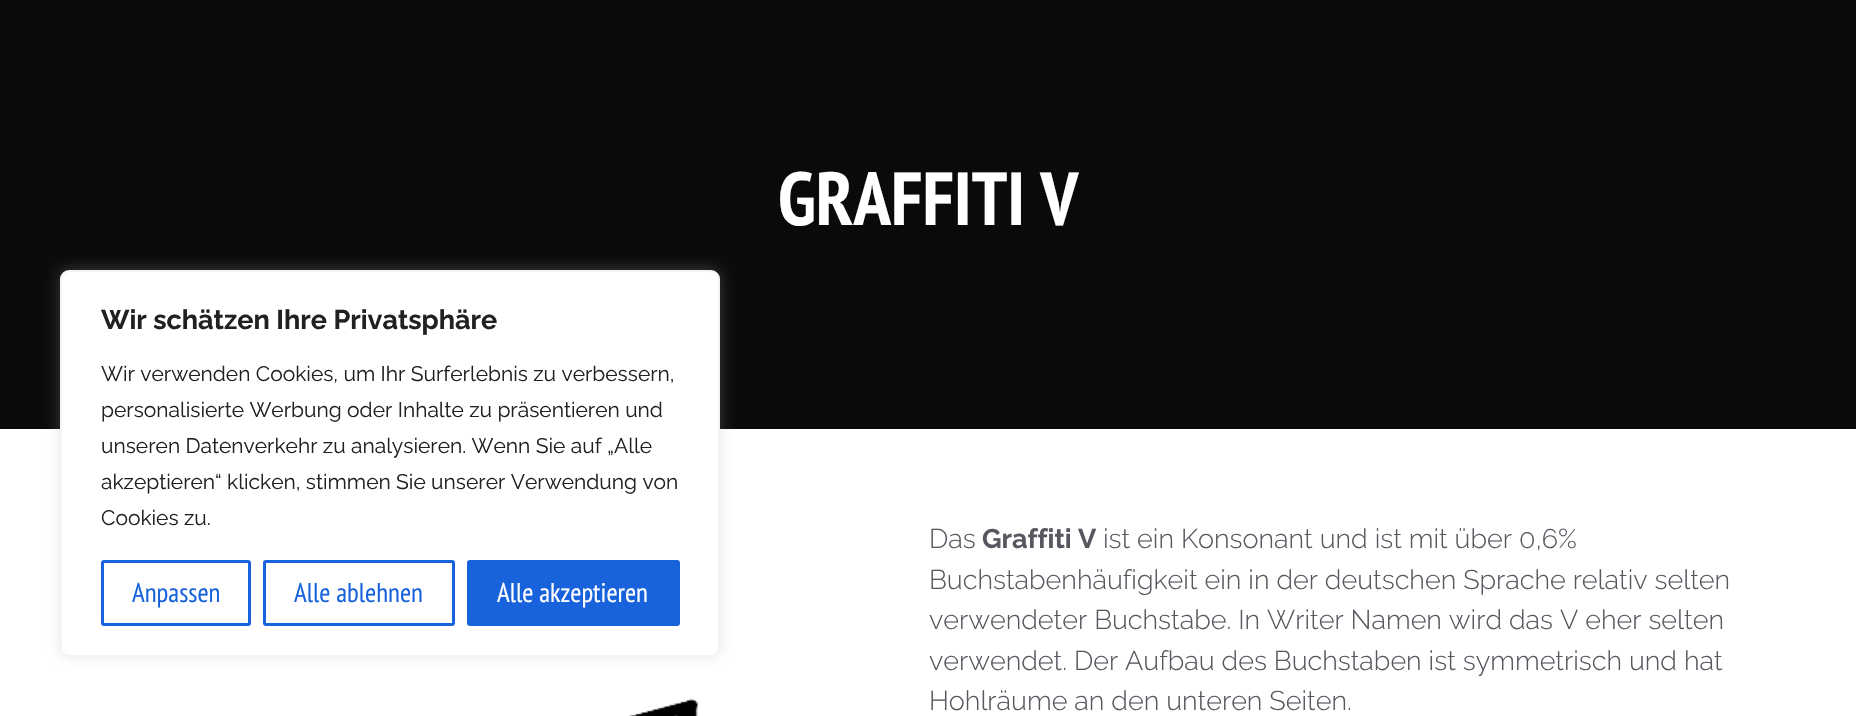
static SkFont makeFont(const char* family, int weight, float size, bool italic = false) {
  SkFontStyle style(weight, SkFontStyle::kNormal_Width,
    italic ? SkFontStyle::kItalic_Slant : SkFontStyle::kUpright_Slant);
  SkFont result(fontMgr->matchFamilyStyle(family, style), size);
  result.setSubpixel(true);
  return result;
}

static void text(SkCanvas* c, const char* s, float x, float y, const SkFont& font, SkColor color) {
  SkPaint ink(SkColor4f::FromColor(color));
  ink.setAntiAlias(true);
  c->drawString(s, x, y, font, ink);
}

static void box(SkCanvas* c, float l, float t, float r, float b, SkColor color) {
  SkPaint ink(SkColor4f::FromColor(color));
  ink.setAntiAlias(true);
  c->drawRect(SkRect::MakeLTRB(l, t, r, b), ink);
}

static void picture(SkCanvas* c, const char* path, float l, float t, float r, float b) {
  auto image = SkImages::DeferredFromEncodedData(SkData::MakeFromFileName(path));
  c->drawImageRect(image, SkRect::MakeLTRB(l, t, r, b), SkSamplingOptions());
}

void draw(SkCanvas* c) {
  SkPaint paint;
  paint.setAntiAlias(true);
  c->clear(0xffffffff);
  box(c, 0, 0, 1856, 429, 0xff0a0a0a);
  SkFont face1 = makeFont("PT Sans Narrow", 700, 75);
  text(c, "GRAFFITI V", 778, 225, face1, 0xffffffff);
  paint.setColor(0x4dacabab);
  paint.setMaskFilter(SkMaskFilter::MakeBlur(kNormal_SkBlurStyle, 7.5f));
  c->drawRoundRect(SkRect::MakeLTRB(60, 269, 720, 656), 9, 9, paint);
  paint.setMaskFilter(nullptr);
  paint.setColor(0xffffffff);
  c->drawRoundRect(SkRect::MakeLTRB(61, 271, 719, 656), 8, 8, paint);
  paint.setStyle(SkPaint::kStroke_Style);
  paint.setStrokeWidth(2);
  paint.setColor(0xfff4f4f4);
  c->drawRoundRect(SkRect::MakeLTRB(61, 271, 719, 656), 8, 8, paint);
  SkFont face2 = makeFont("Raleway", 700, 27);
  text(c, "Wir schätzen Ihre Privatsphäre", 101, 329, face2, 0xff212121);
  SkFont face3 = makeFont("Raleway", 400, 21);
  text(c, "Wir verwenden Cookies, um Ihr Surferlebnis zu verbessern,", 101, 381, face3, 0xff212121);
  text(c, "personalisierte Werbung oder Inhalte zu präsentieren und", 101, 417, face3, 0xff212121);
  text(c, "unseren Datenverkehr zu analysieren. Wenn Sie auf „Alle", 101, 453, face3, 0xff212121);
  text(c, "akzeptieren“ klicken, stimmen Sie unserer Verwendung von", 101, 489, face3, 0xff212121);
  text(c, "Cookies zu.", 101, 525, face3, 0xff212121);
  paint.setStrokeWidth(3);
  paint.setColor(0xff1863dc);
  c->drawRoundRect(SkRect::MakeLTRB(102.5f, 561.5f, 249.5f, 624.5f), 1.5f, 1.5f, paint);
  SkFont face4 = makeFont("PT Sans Narrow", 400, 27);
  text(c, "Anpassen", 132, 602, face4, 0xff1863dc);
  c->drawRoundRect(SkRect::MakeLTRB(264.5f, 561.5f, 453.5f, 624.5f), 1.5f, 1.5f, paint);
  text(c, "Alle ablehnen", 294, 602, face4, 0xff1863dc);
  paint.setStyle(SkPaint::kFill_Style);
  c->drawRoundRect(SkRect::MakeLTRB(468.5f, 561.5f, 678.5f, 624.5f), 1.5f, 1.5f, paint);
  paint.setStyle(SkPaint::kStroke_Style);
  c->drawRoundRect(SkRect::MakeLTRB(468.5f, 561.5f, 678.5f, 624.5f), 1.5f, 1.5f, paint);
  text(c, "Alle akzeptieren", 497, 602, face4, 0xffffffff);
  picture(c, "img_01.png", 628, 698, 699, 716);
  SkFont face5 = makeFont("Raleway", 300, 27);
  text(c, "Das", 929, 548, face5, 0xff575760);
  text(c, "Graffiti V", 982, 548, face2, 0xff575760);
  text(c, "ist ein Konsonant und ist mit über 0,6%", 1103, 548, face5, 0xff575760);
  text(c, "Buchstabenhäufigkeit ein in der deutschen Sprache relativ selten", 929, 589, face5, 0xff575760);
  text(c, "verwendeter Buchstabe. In Writer Namen wird das V eher selten", 929, 629, face5, 0xff575760);
  text(c, "verwendet. Der Aufbau des Buchstaben ist symmetrisch und hat", 929, 670, face5, 0xff575760);
  text(c, "Hohlräume an den unteren Seiten.", 929, 710, face5, 0xff575760);
}
